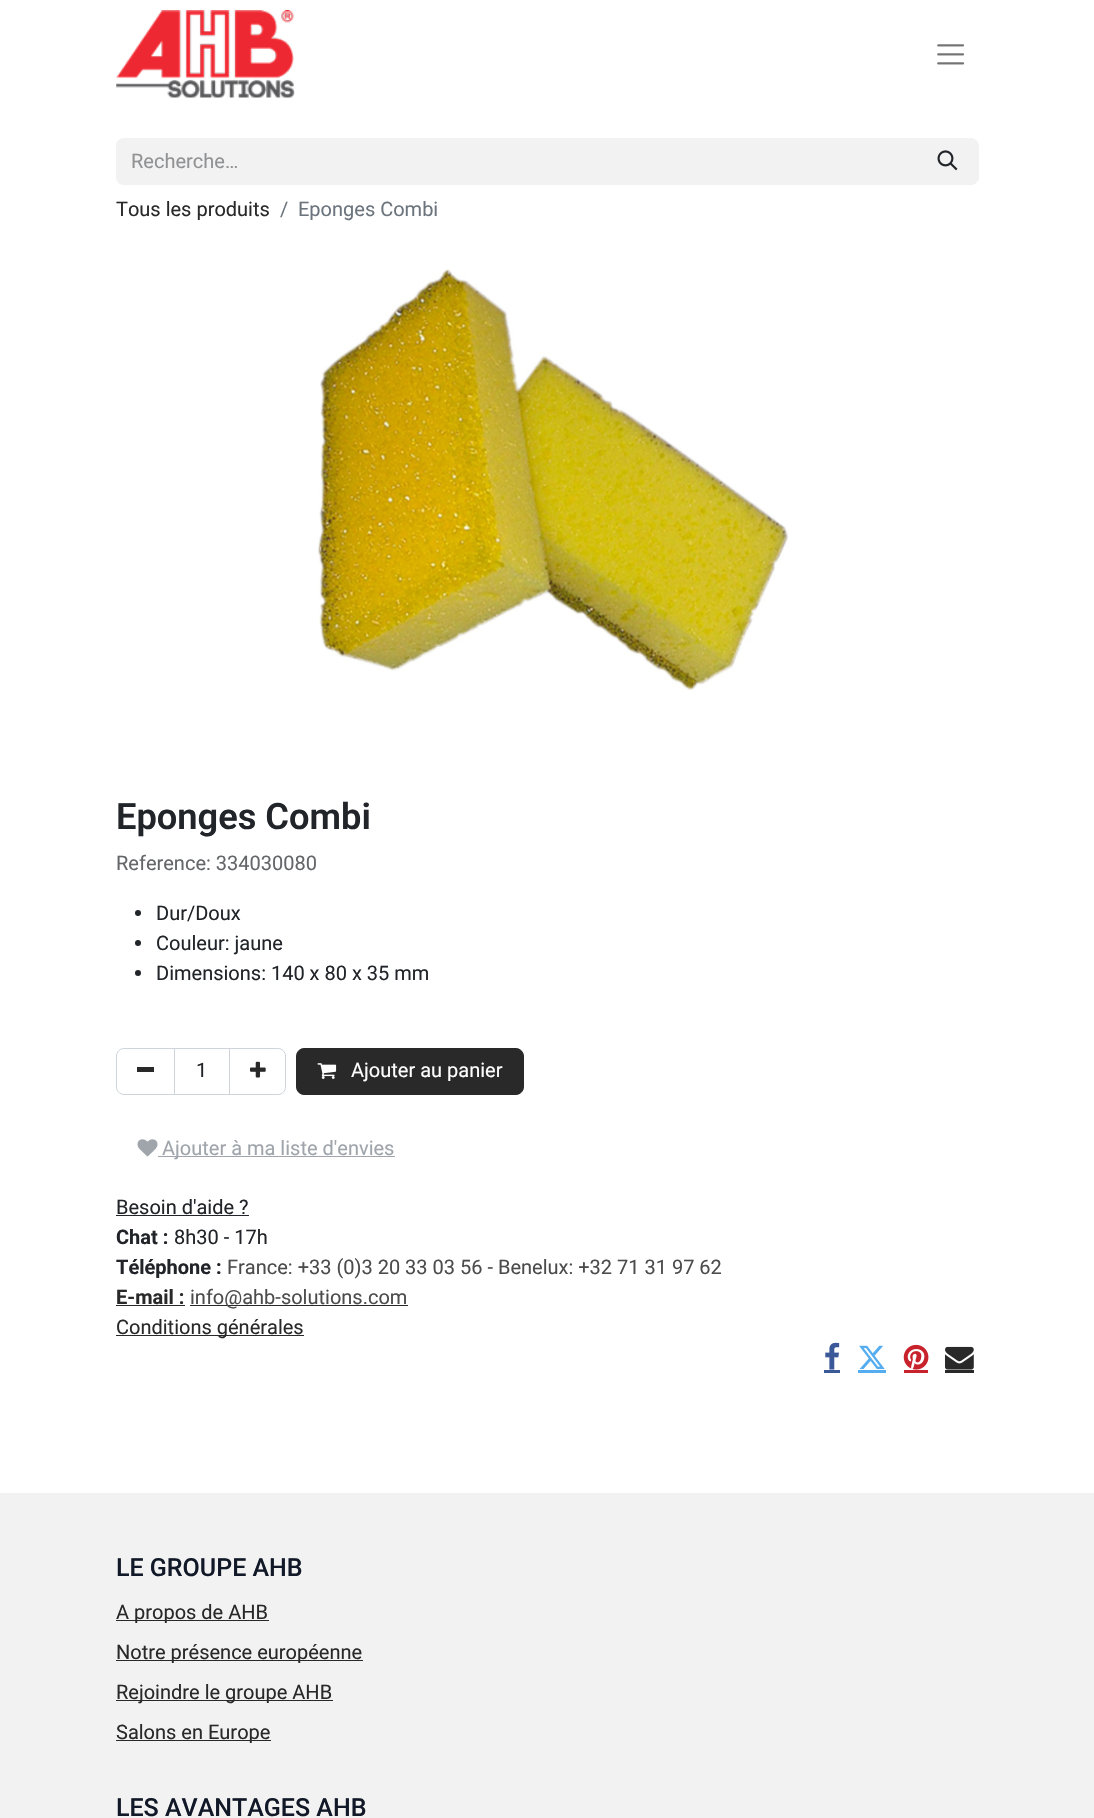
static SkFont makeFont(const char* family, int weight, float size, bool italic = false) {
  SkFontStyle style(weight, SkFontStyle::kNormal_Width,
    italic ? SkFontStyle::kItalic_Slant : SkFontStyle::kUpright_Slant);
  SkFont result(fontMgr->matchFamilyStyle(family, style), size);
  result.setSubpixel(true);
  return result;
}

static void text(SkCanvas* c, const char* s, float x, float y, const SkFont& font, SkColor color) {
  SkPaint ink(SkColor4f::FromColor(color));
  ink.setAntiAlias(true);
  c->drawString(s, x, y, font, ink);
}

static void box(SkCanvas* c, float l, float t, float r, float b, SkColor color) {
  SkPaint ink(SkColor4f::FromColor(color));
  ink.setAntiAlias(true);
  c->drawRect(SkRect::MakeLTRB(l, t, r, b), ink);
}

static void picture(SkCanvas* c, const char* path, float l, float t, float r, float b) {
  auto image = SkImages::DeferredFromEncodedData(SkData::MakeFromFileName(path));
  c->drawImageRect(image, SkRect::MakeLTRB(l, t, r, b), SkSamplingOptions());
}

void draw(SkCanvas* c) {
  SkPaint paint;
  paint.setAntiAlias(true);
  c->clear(0xffffffff);
  picture(c, "img_01.png", 116, 10, 295, 98);
  picture(c, "img_02.png", 937, 44, 965, 65);
  paint.setColor(0xfff3f2f2);
  c->drawPath(SkPathBuilder().moveTo(124, 138).lineTo(918, 138).lineTo(918, 185).lineTo(124, 185).cubicTo(119.5f, 185, 116, 181.5f, 116, 177).lineTo(116, 146).cubicTo(116, 141.5f, 119.5f, 138, 124, 138).close().detach(), paint);
  SkFont face1 = makeFont("Roboto", 400, 20);
  text(c, "Recherche…", 131, 168, face1, 0xff909294);
  c->drawPath(SkPathBuilder().moveTo(916.5f, 138.5f).lineTo(971, 138.5f).cubicTo(975, 138.5f, 978.5f, 142, 978.5f, 146).lineTo(978.5f, 177).cubicTo(978.5f, 181, 975, 184.5f, 971, 184.5f).lineTo(916.5f, 184.5f).close().detach(), paint);
  paint.setStyle(SkPaint::kStroke_Style);
  paint.setStrokeWidth(1);
  c->drawPath(SkPathBuilder().moveTo(916.5f, 138.5f).lineTo(971, 138.5f).cubicTo(975, 138.5f, 978.5f, 142, 978.5f, 146).lineTo(978.5f, 177).cubicTo(978.5f, 181, 975, 184.5f, 971, 184.5f).lineTo(916.5f, 184.5f).close().detach(), paint);
  picture(c, "img_03.png", 937, 150, 958, 171);
  text(c, "Tous les produits", 116, 216, face1, 0xff292929);
  text(c, "/", 280, 216, face1, 0xff6c757d);
  text(c, "Eponges Combi", 298, 216, face1, 0xff6c757d);
  picture(c, "img_04.png", 317, 269, 789, 691);
  SkFont face2 = makeFont("Roboto", 600, 36.25f);
  text(c, "Eponges Combi", 116, 829, face2, 0xff212529);
  text(c, "Reference: 334030080", 116, 870, face1, 0xff646669);
  paint.setStyle(SkPaint::kFill_Style);
  paint.setColor(0xff212529);
  c->drawCircle(138, 913, 3, paint);
  text(c, "Dur/Doux", 156, 920, face1, 0xff212529);
  c->drawCircle(138, 943, 3, paint);
  text(c, "Couleur: jaune", 156, 950, face1, 0xff212529);
  c->drawCircle(138, 973, 3, paint);
  text(c, "Dimensions: 140 x 80 x 35 mm", 156, 980, face1, 0xff212529);
  paint.setStyle(SkPaint::kStroke_Style);
  paint.setColor(0xffced4da);
  c->drawRect(SkRect::MakeLTRB(174.5f, 1048.5f, 229.5f, 1094.5f), paint);
  c->drawPath(SkPathBuilder().moveTo(124, 1048.5f).lineTo(174.5f, 1048.5f).lineTo(174.5f, 1094.5f).lineTo(124, 1094.5f).cubicTo(120, 1094.5f, 116.5f, 1091, 116.5f, 1087).lineTo(116.5f, 1056).cubicTo(116.5f, 1052, 120, 1048.5f, 124, 1048.5f).close().detach(), paint);
  box(c, 137, 1067, 154, 1072, 0xff292929);
  text(c, "1", 196, 1077, face1, 0xff212529);
  c->drawPath(SkPathBuilder().moveTo(229.5f, 1048.5f).lineTo(278, 1048.5f).cubicTo(282, 1048.5f, 285.5f, 1052, 285.5f, 1056).lineTo(285.5f, 1087).cubicTo(285.5f, 1091, 282, 1094.5f, 278, 1094.5f).lineTo(229.5f, 1094.5f).close().detach(), paint);
  picture(c, "img_05.png", 250, 1061, 266, 1078);
  paint.setStyle(SkPaint::kFill_Style);
  paint.setColor(0xff292929);
  c->drawRoundRect(SkRect::MakeLTRB(296.5f, 1048.5f, 523.5f, 1094.5f), 7.5f, 7.5f, paint);
  paint.setStyle(SkPaint::kStroke_Style);
  c->drawRoundRect(SkRect::MakeLTRB(296.5f, 1048.5f, 523.5f, 1094.5f), 7.5f, 7.5f, paint);
  picture(c, "img_06.png", 317, 1063, 337, 1079);
  text(c, "Ajouter au panier", 351, 1077, face1, 0xffffffff);
  picture(c, "img_07.png", 137, 1139, 158, 1157);
  box(c, 158, 1156, 395, 1157, 0xff9fa5ab);
  text(c, "Ajouter à ma liste d'envies", 162, 1155, face1, 0xff9fa5ab);
  text(c, "Besoin d'aide ?", 116, 1214, face1, 0xff212529);
  box(c, 116, 1215, 249, 1216, 0xff212529);
  SkFont face3 = makeFont("Roboto", 700, 20);
  text(c, "Chat :", 116, 1244, face3, 0xff212529);
  text(c, "8h30 - 17h", 174, 1244, face1, 0xff212529);
  text(c, "Téléphone :", 116, 1274, face3, 0xff212529);
  text(c, "France: +33 (0)3 20 33 03 56 - Benelux: +32 71 31 97 62", 227, 1274, face1, 0xff4c4c4c);
  text(c, "E-mail :", 116, 1304, face3, 0xff292929);
  box(c, 116, 1305, 185, 1306, 0xff292929);
  box(c, 190, 1305, 408, 1306, 0xff292929);
  text(c, "info@ahb-solutions.com", 190, 1304, face1, 0xff4c4c4c);
  box(c, 116, 1335, 304, 1336, 0xff292929);
  text(c, "Conditions générales", 116, 1334, face1, 0xff292929);
  box(c, 824, 1370, 840, 1373, 0xff3b5999);
  picture(c, "img_08.png", 825, 1342, 840, 1370);
  box(c, 858, 1370, 886, 1373, 0xff55acee);
  picture(c, "img_09.png", 859, 1345, 885, 1370);
  box(c, 904, 1370, 928, 1373, 0xffc8232c);
  picture(c, "img_10.png", 903, 1344, 929, 1370);
  box(c, 945, 1370, 974, 1373, 0xff292929);
  picture(c, "img_11.png", 945, 1346, 974, 1370);
  box(c, 0, 1493, 1094, 1818, 0xfff3f2f2);
  SkFont face4 = makeFont("Roboto", 500, 25);
  text(c, "LE GROUPE AHB", 116, 1576, face4, 0xff111827);
  box(c, 116, 1620, 269, 1621, 0xff292929);
  text(c, "A propos de AHB", 116, 1619, face1, 0xff292929);
  box(c, 116, 1660, 363, 1661, 0xff292929);
  text(c, "Notre présence européenne", 116, 1659, face1, 0xff292929);
  box(c, 116, 1700, 333, 1701, 0xff292929);
  text(c, "Rejoindre le groupe AHB", 116, 1699, face1, 0xff292929);
  box(c, 116, 1740, 271, 1741, 0xff292929);
  text(c, "Salons en Europe", 116, 1739, face1, 0xff292929);
  text(c, "LES AVANTAGES AHB", 116, 1816, face4, 0xff111827);
}
